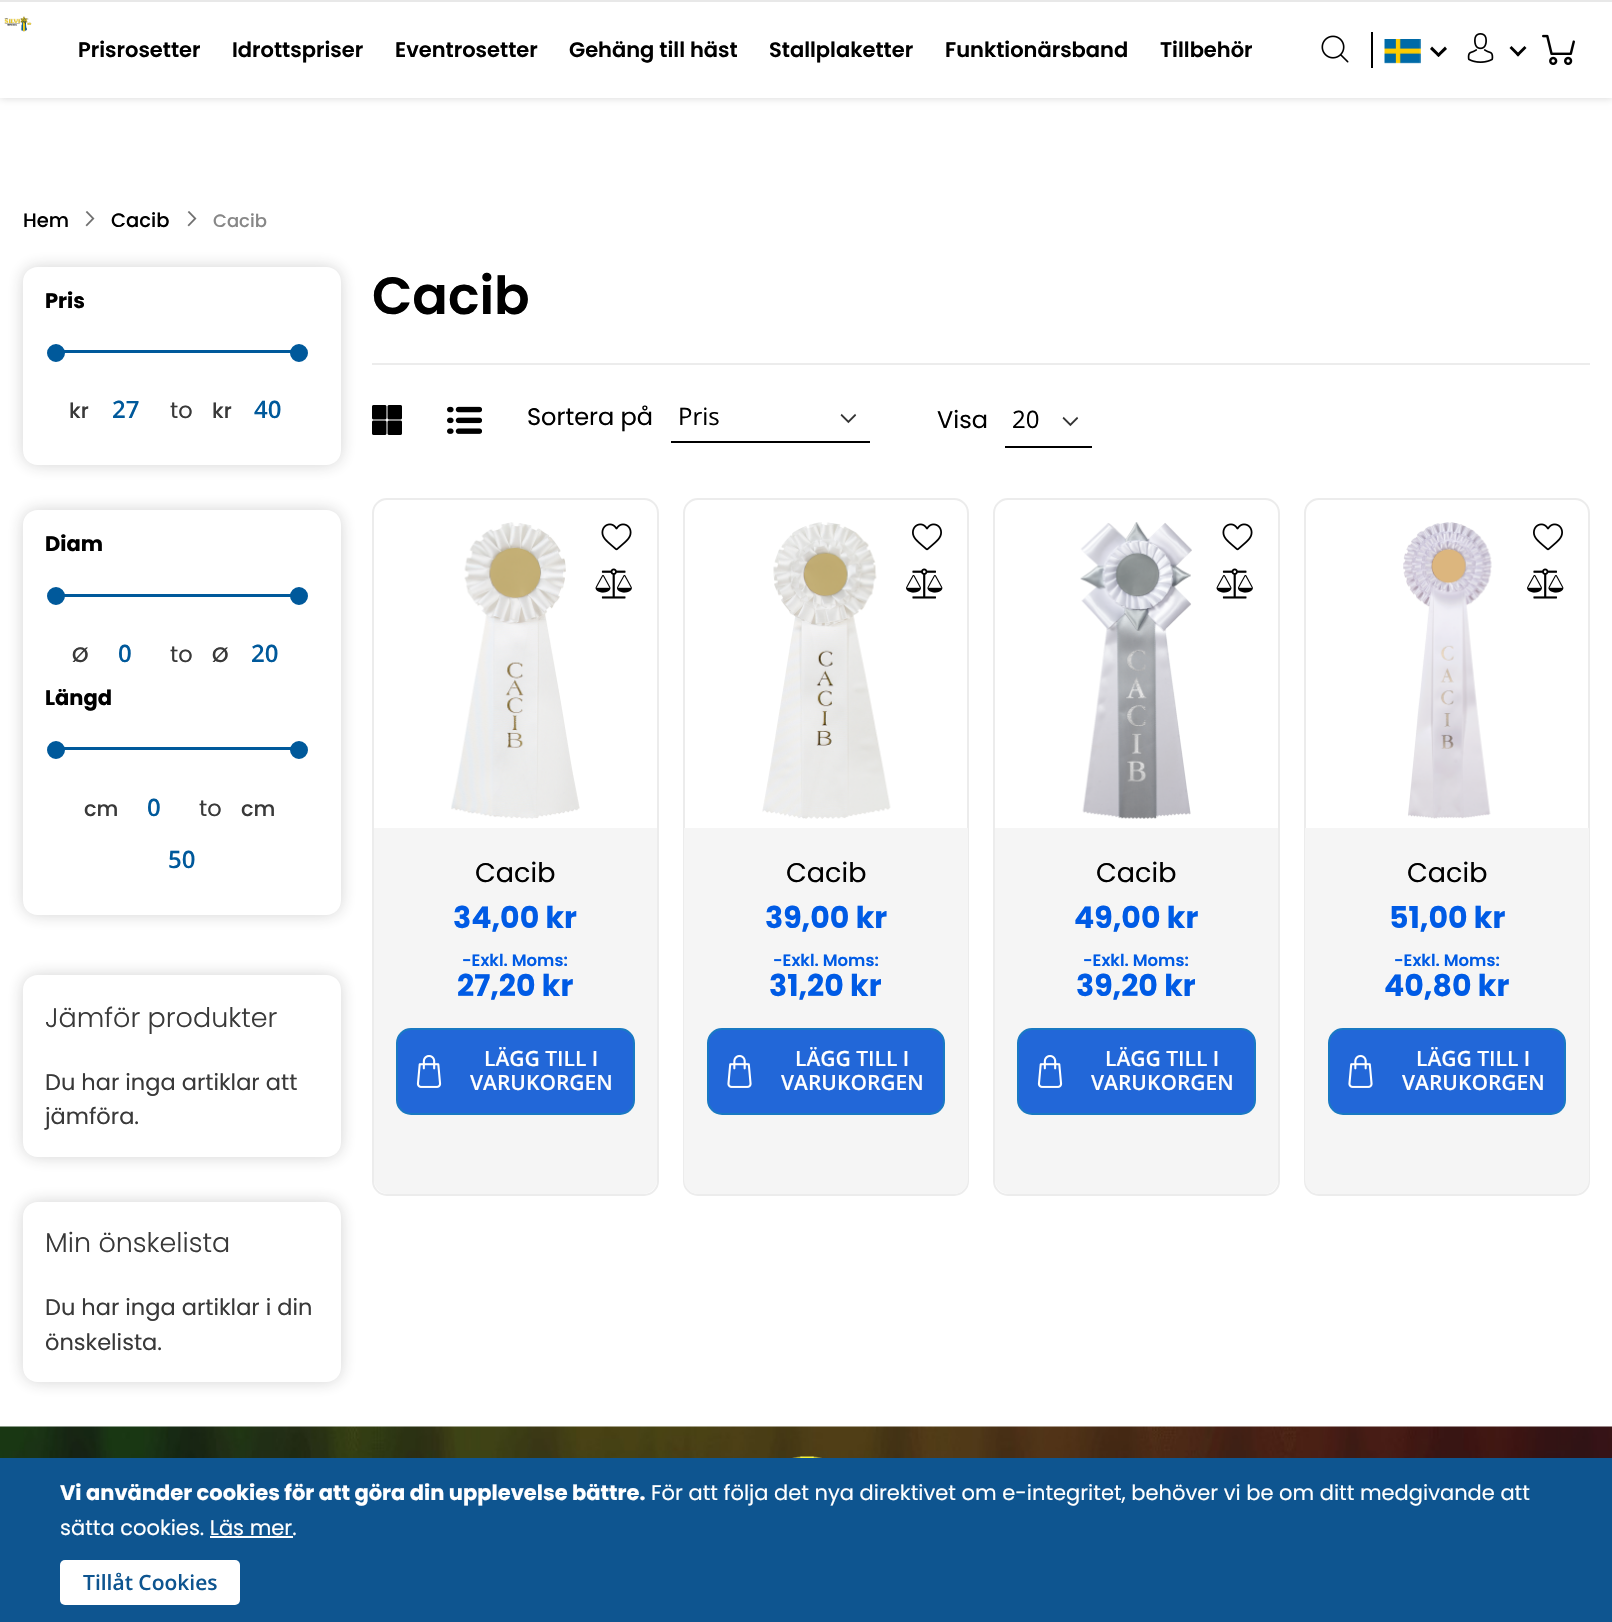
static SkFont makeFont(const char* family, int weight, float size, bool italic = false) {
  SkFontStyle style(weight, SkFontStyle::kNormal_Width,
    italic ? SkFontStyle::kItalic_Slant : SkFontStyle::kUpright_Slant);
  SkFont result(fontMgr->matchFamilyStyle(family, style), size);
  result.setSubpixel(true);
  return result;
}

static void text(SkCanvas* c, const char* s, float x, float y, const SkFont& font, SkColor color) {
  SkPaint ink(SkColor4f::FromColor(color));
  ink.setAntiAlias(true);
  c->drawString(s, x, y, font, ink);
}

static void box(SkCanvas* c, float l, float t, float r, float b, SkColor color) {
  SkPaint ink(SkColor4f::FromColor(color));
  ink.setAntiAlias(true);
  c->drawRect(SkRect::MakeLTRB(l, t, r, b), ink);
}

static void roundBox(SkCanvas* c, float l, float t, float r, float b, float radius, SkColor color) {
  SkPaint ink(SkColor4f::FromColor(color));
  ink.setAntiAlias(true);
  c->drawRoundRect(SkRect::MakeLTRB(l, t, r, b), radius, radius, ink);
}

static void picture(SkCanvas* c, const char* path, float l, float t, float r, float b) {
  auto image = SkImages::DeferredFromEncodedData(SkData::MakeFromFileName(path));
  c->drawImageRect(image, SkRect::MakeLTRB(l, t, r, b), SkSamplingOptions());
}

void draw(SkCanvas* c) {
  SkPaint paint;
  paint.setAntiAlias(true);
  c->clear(0xffffffff);
  paint.setColor(0x29000000);
  paint.setMaskFilter(SkMaskFilter::MakeBlur(kNormal_SkBlurStyle, 4));
  c->drawRect(SkRect::MakeLTRB(0, 0, 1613, 98), paint);
  paint.setMaskFilter(nullptr);
  box(c, 0, 2, 1612, 98, 0xffffffff);
  box(c, 0, 0, 1612, 2, 0xffe8e8e8);
  picture(c, "img_01.png", 4, 16, 32, 32);
  SkFont face1 = makeFont("Poppins", 600, 21);
  text(c, "Prisrosetter", 78, 57, face1, 0xff000000);
  text(c, "Idrottspriser", 232, 57, face1, 0xff000000);
  text(c, "Eventrosetter", 395, 57, face1, 0xff000000);
  text(c, "Gehäng till häst", 569, 57, face1, 0xff000000);
  text(c, "Stallplaketter", 769, 57, face1, 0xff000000);
  text(c, "Funktionärsband", 945, 57, face1, 0xff000000);
  text(c, "Tillbehör", 1160, 57, face1, 0xff000000);
  picture(c, "img_02.png", 1321, 35, 1349, 63);
  box(c, 1371, 32, 1373, 68, 0xff000000);
  picture(c, "img_03.png", 1384, 39, 1421, 64);
  paint.setColor(0xff000000);
  c->drawPath(SkPathBuilder().moveTo(1445, 46.5f).lineTo(1447, 49).lineTo(1438.5f, 57).lineTo(1436.5f, 55).close().detach(), paint);
  c->drawPath(SkPathBuilder().moveTo(1432, 46.5f).lineTo(1440.5f, 55).lineTo(1438.5f, 57).lineTo(1430, 49).close().detach(), paint);
  picture(c, "img_04.png", 1467, 33, 1494, 63);
  c->drawPath(SkPathBuilder().moveTo(1524.5f, 46).lineTo(1526.5f, 48).lineTo(1518, 56.5f).lineTo(1516, 54.5f).close().detach(), paint);
  c->drawPath(SkPathBuilder().moveTo(1511.5f, 46).lineTo(1520, 54.5f).lineTo(1518, 56.5f).lineTo(1509.5f, 48).close().detach(), paint);
  picture(c, "img_05.png", 1542, 34, 1575, 65);
  SkFont face2 = makeFont("Poppins", 500, 19.5f);
  text(c, "Hem", 23, 227, face2, 0xff000000);
  picture(c, "img_06.png", 85, 211, 95, 227);
  text(c, "Cacib", 111, 227, face2, 0xff000000);
  picture(c, "img_06.png", 187, 211, 197, 227);
  SkFont face3 = makeFont("Poppins", 500, 18);
  text(c, "Cacib", 213, 227, face3, 0xff878787);
  c->save();
  c->clipPath(SkPathBuilder(SkPathFillType::kEvenOdd).moveTo(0, 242).lineTo(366, 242).lineTo(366, 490).lineTo(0, 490).close().moveTo(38, 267).lineTo(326, 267).cubicTo(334.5f, 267, 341, 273.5f, 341, 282).lineTo(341, 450).cubicTo(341, 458.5f, 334.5f, 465, 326, 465).lineTo(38, 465).cubicTo(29.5f, 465, 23, 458.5f, 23, 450).lineTo(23, 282).cubicTo(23, 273.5f, 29.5f, 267, 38, 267).close().detach(), true);
  paint.setColor(0x33212121);
  paint.setMaskFilter(SkMaskFilter::MakeBlur(kNormal_SkBlurStyle, 8));
  c->drawRoundRect(SkRect::MakeLTRB(23, 267, 341, 465), 15, 15, paint);
  paint.setMaskFilter(nullptr);
  c->restore();
  SkFont face4 = makeFont("Poppins", 700, 21);
  text(c, "Pris", 45, 308, face4, 0xff000000);
  box(c, 60, 350, 291, 353, 0xff00599b);
  paint.setColor(0xff00599b);
  c->drawCircle(56, 353, 8, paint);
  paint.setStyle(SkPaint::kStroke_Style);
  paint.setStrokeWidth(2);
  c->drawCircle(56, 353, 8, paint);
  paint.setStyle(SkPaint::kFill_Style);
  c->drawCircle(299, 353, 8, paint);
  paint.setStyle(SkPaint::kStroke_Style);
  c->drawCircle(299, 353, 8, paint);
  SkFont face5 = makeFont("Poppins", 500, 21);
  text(c, "kr", 69, 418, face5, 0xff393939);
  SkFont face6 = makeFont("Open Sans", 600, 24);
  text(c, "27", 112, 418, face6, 0xff00599b);
  SkFont face7 = makeFont("Poppins", 400, 22.5f);
  text(c, "to", 170, 418, face7, 0xff393939);
  text(c, "kr", 212, 418, face5, 0xff393939);
  text(c, "40", 254, 418, face6, 0xff00599b);
  c->save();
  c->clipPath(SkPathBuilder(SkPathFillType::kEvenOdd).moveTo(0, 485).lineTo(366, 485).lineTo(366, 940).lineTo(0, 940).close().moveTo(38, 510).lineTo(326, 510).cubicTo(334.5f, 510, 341, 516.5f, 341, 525).lineTo(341, 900).cubicTo(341, 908.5f, 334.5f, 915, 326, 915).lineTo(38, 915).cubicTo(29.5f, 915, 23, 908.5f, 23, 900).lineTo(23, 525).cubicTo(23, 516.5f, 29.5f, 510, 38, 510).close().detach(), true);
  paint.setStyle(SkPaint::kFill_Style);
  paint.setColor(0x33212121);
  paint.setMaskFilter(SkMaskFilter::MakeBlur(kNormal_SkBlurStyle, 8));
  c->drawRoundRect(SkRect::MakeLTRB(23, 510, 341, 915), 15, 15, paint);
  paint.setMaskFilter(nullptr);
  c->restore();
  text(c, "Diam", 45, 551, face4, 0xff000000);
  box(c, 60, 594, 291, 597, 0xff00599b);
  paint.setColor(0xff00599b);
  c->drawCircle(56, 596, 8, paint);
  paint.setStyle(SkPaint::kStroke_Style);
  c->drawCircle(56, 596, 8, paint);
  paint.setStyle(SkPaint::kFill_Style);
  c->drawCircle(299, 596, 8, paint);
  paint.setStyle(SkPaint::kStroke_Style);
  c->drawCircle(299, 596, 8, paint);
  text(c, "Ø", 72, 662, face5, 0xff393939);
  text(c, "0", 118, 662, face6, 0xff00599b);
  text(c, "to", 170, 662, face7, 0xff393939);
  text(c, "Ø", 212, 662, face5, 0xff393939);
  text(c, "20", 251, 662, face6, 0xff00599b);
  text(c, "Längd", 45, 705, face4, 0xff000000);
  box(c, 60, 747, 291, 750, 0xff00599b);
  paint.setStyle(SkPaint::kFill_Style);
  c->drawCircle(56, 750, 8, paint);
  paint.setStyle(SkPaint::kStroke_Style);
  c->drawCircle(56, 750, 8, paint);
  paint.setStyle(SkPaint::kFill_Style);
  c->drawCircle(299, 750, 8, paint);
  paint.setStyle(SkPaint::kStroke_Style);
  c->drawCircle(299, 750, 8, paint);
  text(c, "cm", 84, 816, face5, 0xff393939);
  text(c, "0", 147, 816, face6, 0xff00599b);
  text(c, "to", 199, 816, face7, 0xff393939);
  text(c, "cm", 241, 816, face5, 0xff393939);
  text(c, "50", 168, 868, face6, 0xff00599b);
  SkFont face8 = makeFont("Poppins", 600, 52.5f);
  text(c, "Cacib", 372, 314, face8, 0xff000000);
  box(c, 372, 363, 1590, 365, 0xffececec);
  picture(c, "img_07.png", 372, 405, 402, 435);
  picture(c, "img_08.png", 447, 406, 482, 434);
  SkFont face9 = makeFont("Poppins", 400, 24);
  text(c, "Sortera på", 527, 425, face9, 0xff000000);
  picture(c, "img_09.png", 840, 413, 857, 424);
  box(c, 671, 441, 870, 443, 0xff000000);
  SkFont face10 = makeFont("Open Sans", 400, 24);
  text(c, "Pris", 678, 425, face10, 0xff000000);
  text(c, "Visa", 937, 428, face9, 0xff000000);
  picture(c, "img_09.png", 1062, 416, 1079, 427);
  box(c, 1005, 446, 1092, 448, 0xff000000);
  text(c, "20", 1012, 428, face10, 0xff000000);
  paint.setColor(0xffececec);
  c->drawRoundRect(SkRect::MakeLTRB(373, 499, 658, 1195), 14, 14, paint);
  picture(c, "img_10.png", 451, 522, 580, 819);
  picture(c, "img_11.png", 601, 523, 632, 551);
  picture(c, "img_12.png", 595, 568, 632, 599);
  paint.setStyle(SkPaint::kFill_Style);
  paint.setColor(0xfff5f5f5);
  c->drawPath(SkPathBuilder().moveTo(374, 828).lineTo(657, 828).lineTo(657, 1180).cubicTo(657, 1187.5f, 650.5f, 1194, 643, 1194).lineTo(388, 1194).cubicTo(380.5f, 1194, 374, 1187.5f, 374, 1180).close().detach(), paint);
  SkFont face11 = makeFont("Poppins", 400, 27);
  text(c, "Cacib", 475, 882, face11, 0xff000000);
  SkFont face12 = makeFont("Poppins", 700, 30);
  text(c, "34,00 kr", 453, 928, face12, 0xff005be5);
  SkFont face13 = makeFont("Poppins", 600, 16.5f);
  text(c, "-Exkl. Moms:", 462, 966, face13, 0xff005be5);
  text(c, "27,20 kr", 457, 996, face12, 0xff005be5);
  paint.setColor(0xff2267d8);
  c->drawRoundRect(SkRect::MakeLTRB(397, 1029, 634, 1114), 14, 14, paint);
  paint.setStyle(SkPaint::kStroke_Style);
  paint.setColor(0xff1979c3);
  c->drawRoundRect(SkRect::MakeLTRB(397, 1029, 634, 1114), 14, 14, paint);
  picture(c, "img_13.png", 416, 1055, 442, 1088);
  SkFont face14 = makeFont("Open Sans", 600, 21);
  text(c, "LÄGG TILL I", 484, 1066, face14, 0xffffffff);
  text(c, "VARUKORGEN", 470, 1090, face14, 0xffffffff);
  paint.setColor(0xffececec);
  c->drawRoundRect(SkRect::MakeLTRB(684, 499, 968, 1195), 14, 14, paint);
  picture(c, "img_14.png", 762, 522, 891, 819);
  picture(c, "img_15.png", 912, 523, 942, 551);
  picture(c, "img_16.png", 906, 568, 943, 599);
  paint.setStyle(SkPaint::kFill_Style);
  paint.setColor(0xfff5f5f5);
  c->drawPath(SkPathBuilder().moveTo(684, 828).lineTo(968, 828).lineTo(968, 1180).cubicTo(968, 1187.5f, 961.5f, 1194, 954, 1194).lineTo(698, 1194).cubicTo(690.5f, 1194, 684, 1187.5f, 684, 1180).close().detach(), paint);
  text(c, "Cacib", 786, 882, face11, 0xff000000);
  text(c, "39,00 kr", 765, 928, face12, 0xff005be5);
  text(c, "-Exkl. Moms:", 773, 966, face13, 0xff005be5);
  text(c, "31,20 kr", 769, 996, face12, 0xff005be5);
  paint.setColor(0xff2267d8);
  c->drawRoundRect(SkRect::MakeLTRB(708, 1029, 944, 1114), 14, 14, paint);
  paint.setStyle(SkPaint::kStroke_Style);
  paint.setColor(0xff1979c3);
  c->drawRoundRect(SkRect::MakeLTRB(708, 1029, 944, 1114), 14, 14, paint);
  picture(c, "img_17.png", 727, 1054, 752, 1088);
  text(c, "LÄGG TILL I", 795, 1066, face14, 0xffffffff);
  text(c, "VARUKORGEN", 781, 1090, face14, 0xffffffff);
  paint.setColor(0xffececec);
  c->drawRoundRect(SkRect::MakeLTRB(994, 499, 1279, 1195), 14, 14, paint);
  picture(c, "img_18.png", 1080, 522, 1192, 819);
  picture(c, "img_11.png", 1222, 523, 1253, 551);
  picture(c, "img_12.png", 1216, 568, 1253, 599);
  paint.setStyle(SkPaint::kFill_Style);
  paint.setColor(0xfff5f5f5);
  c->drawPath(SkPathBuilder().moveTo(995, 828).lineTo(1278, 828).lineTo(1278, 1180).cubicTo(1278, 1187.5f, 1271.5f, 1194, 1264, 1194).lineTo(1009, 1194).cubicTo(1001.5f, 1194, 995, 1187.5f, 995, 1180).close().detach(), paint);
  text(c, "Cacib", 1096, 882, face11, 0xff000000);
  text(c, "49,00 kr", 1074, 928, face12, 0xff005be5);
  text(c, "-Exkl. Moms:", 1083, 966, face13, 0xff005be5);
  text(c, "39,20 kr", 1076, 996, face12, 0xff005be5);
  paint.setColor(0xff2267d8);
  c->drawRoundRect(SkRect::MakeLTRB(1018, 1029, 1255, 1114), 14, 14, paint);
  paint.setStyle(SkPaint::kStroke_Style);
  paint.setColor(0xff1979c3);
  c->drawRoundRect(SkRect::MakeLTRB(1018, 1029, 1255, 1114), 14, 14, paint);
  picture(c, "img_13.png", 1037, 1055, 1063, 1088);
  text(c, "LÄGG TILL I", 1105, 1066, face14, 0xffffffff);
  text(c, "VARUKORGEN", 1091, 1090, face14, 0xffffffff);
  paint.setColor(0xffececec);
  c->drawRoundRect(SkRect::MakeLTRB(1305, 499, 1589, 1195), 14, 14, paint);
  picture(c, "img_19.png", 1403, 522, 1492, 819);
  picture(c, "img_15.png", 1533, 523, 1563, 551);
  picture(c, "img_16.png", 1527, 568, 1564, 599);
  paint.setStyle(SkPaint::kFill_Style);
  paint.setColor(0xfff5f5f5);
  c->drawPath(SkPathBuilder().moveTo(1305, 828).lineTo(1589, 828).lineTo(1589, 1180).cubicTo(1589, 1187.5f, 1582.5f, 1194, 1575, 1194).lineTo(1319, 1194).cubicTo(1311.5f, 1194, 1305, 1187.5f, 1305, 1180).close().detach(), paint);
  text(c, "Cacib", 1407, 882, face11, 0xff000000);
  text(c, "51,00 kr", 1389, 928, face12, 0xff005be5);
  text(c, "-Exkl. Moms:", 1394, 966, face13, 0xff005be5);
  text(c, "40,80 kr", 1384, 996, face12, 0xff005be5);
  paint.setColor(0xff2267d8);
  c->drawRoundRect(SkRect::MakeLTRB(1329, 1029, 1565, 1114), 14, 14, paint);
  paint.setStyle(SkPaint::kStroke_Style);
  paint.setColor(0xff1979c3);
  c->drawRoundRect(SkRect::MakeLTRB(1329, 1029, 1565, 1114), 14, 14, paint);
  picture(c, "img_17.png", 1348, 1054, 1373, 1088);
  text(c, "LÄGG TILL I", 1416, 1066, face14, 0xffffffff);
  text(c, "VARUKORGEN", 1402, 1090, face14, 0xffffffff);
  c->save();
  c->clipPath(SkPathBuilder(SkPathFillType::kEvenOdd).moveTo(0, 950).lineTo(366, 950).lineTo(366, 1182).lineTo(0, 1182).close().moveTo(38, 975).lineTo(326, 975).cubicTo(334.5f, 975, 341, 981.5f, 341, 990).lineTo(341, 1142).cubicTo(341, 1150.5f, 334.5f, 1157, 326, 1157).lineTo(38, 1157).cubicTo(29.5f, 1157, 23, 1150.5f, 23, 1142).lineTo(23, 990).cubicTo(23, 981.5f, 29.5f, 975, 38, 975).close().detach(), true);
  paint.setStyle(SkPaint::kFill_Style);
  paint.setColor(0x33212121);
  paint.setMaskFilter(SkMaskFilter::MakeBlur(kNormal_SkBlurStyle, 8));
  c->drawRoundRect(SkRect::MakeLTRB(23, 975, 341, 1157), 15, 15, paint);
  paint.setMaskFilter(nullptr);
  c->restore();
  SkFont face15 = makeFont("Poppins", 300, 27);
  text(c, "Jämför produkter", 45, 1027, face15, 0xff393939);
  text(c, "Du har inga artiklar att", 45, 1090, face7, 0xff393939);
  text(c, "jämföra.", 45, 1124, face7, 0xff393939);
  c->save();
  c->clipPath(SkPathBuilder(SkPathFillType::kEvenOdd).moveTo(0, 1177).lineTo(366, 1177).lineTo(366, 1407).lineTo(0, 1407).close().moveTo(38, 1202).lineTo(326, 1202).cubicTo(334.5f, 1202, 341, 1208.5f, 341, 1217).lineTo(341, 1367).cubicTo(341, 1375.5f, 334.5f, 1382, 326, 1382).lineTo(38, 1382).cubicTo(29.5f, 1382, 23, 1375.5f, 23, 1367).lineTo(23, 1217).cubicTo(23, 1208.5f, 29.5f, 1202, 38, 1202).close().detach(), true);
  paint.setMaskFilter(SkMaskFilter::MakeBlur(kNormal_SkBlurStyle, 8));
  c->drawRoundRect(SkRect::MakeLTRB(23, 1202, 341, 1382), 15, 15, paint);
  paint.setMaskFilter(nullptr);
  c->restore();
  text(c, "Min önskelista", 45, 1252, face15, 0xff393939);
  text(c, "Du har inga artiklar i din", 45, 1315, face7, 0xff393939);
  text(c, "önskelista.", 45, 1350, face7, 0xff393939);
  picture(c, "img_20.png", 0, 1426, 1612, 1458);
  picture(c, "img_21.png", 792, 1456, 822, 1458);
  box(c, 0, 1458, 1612, 1622, 0xff0e5590);
  text(c, "Vi använder cookies för att göra din upplevelse bättre.", 60, 1500, face4, 0xffffffff);
  SkFont face16 = makeFont("Poppins", 400, 21);
  text(c, "För att följa det nya direktivet om e-integritet, behöver vi be om ditt medgivande att", 651, 1500, face16, 0xffffffff);
  text(c, "sätta cookies. Läs mer.", 60, 1535, face16, 0xffffffff);
  box(c, 210, 1536, 293, 1538, 0xffffffff);
  roundBox(c, 60, 1560, 240, 1605, 5, 0xffffffff);
  text(c, "Tillåt Cookies", 83, 1590, face14, 0xff0e5590);
}
